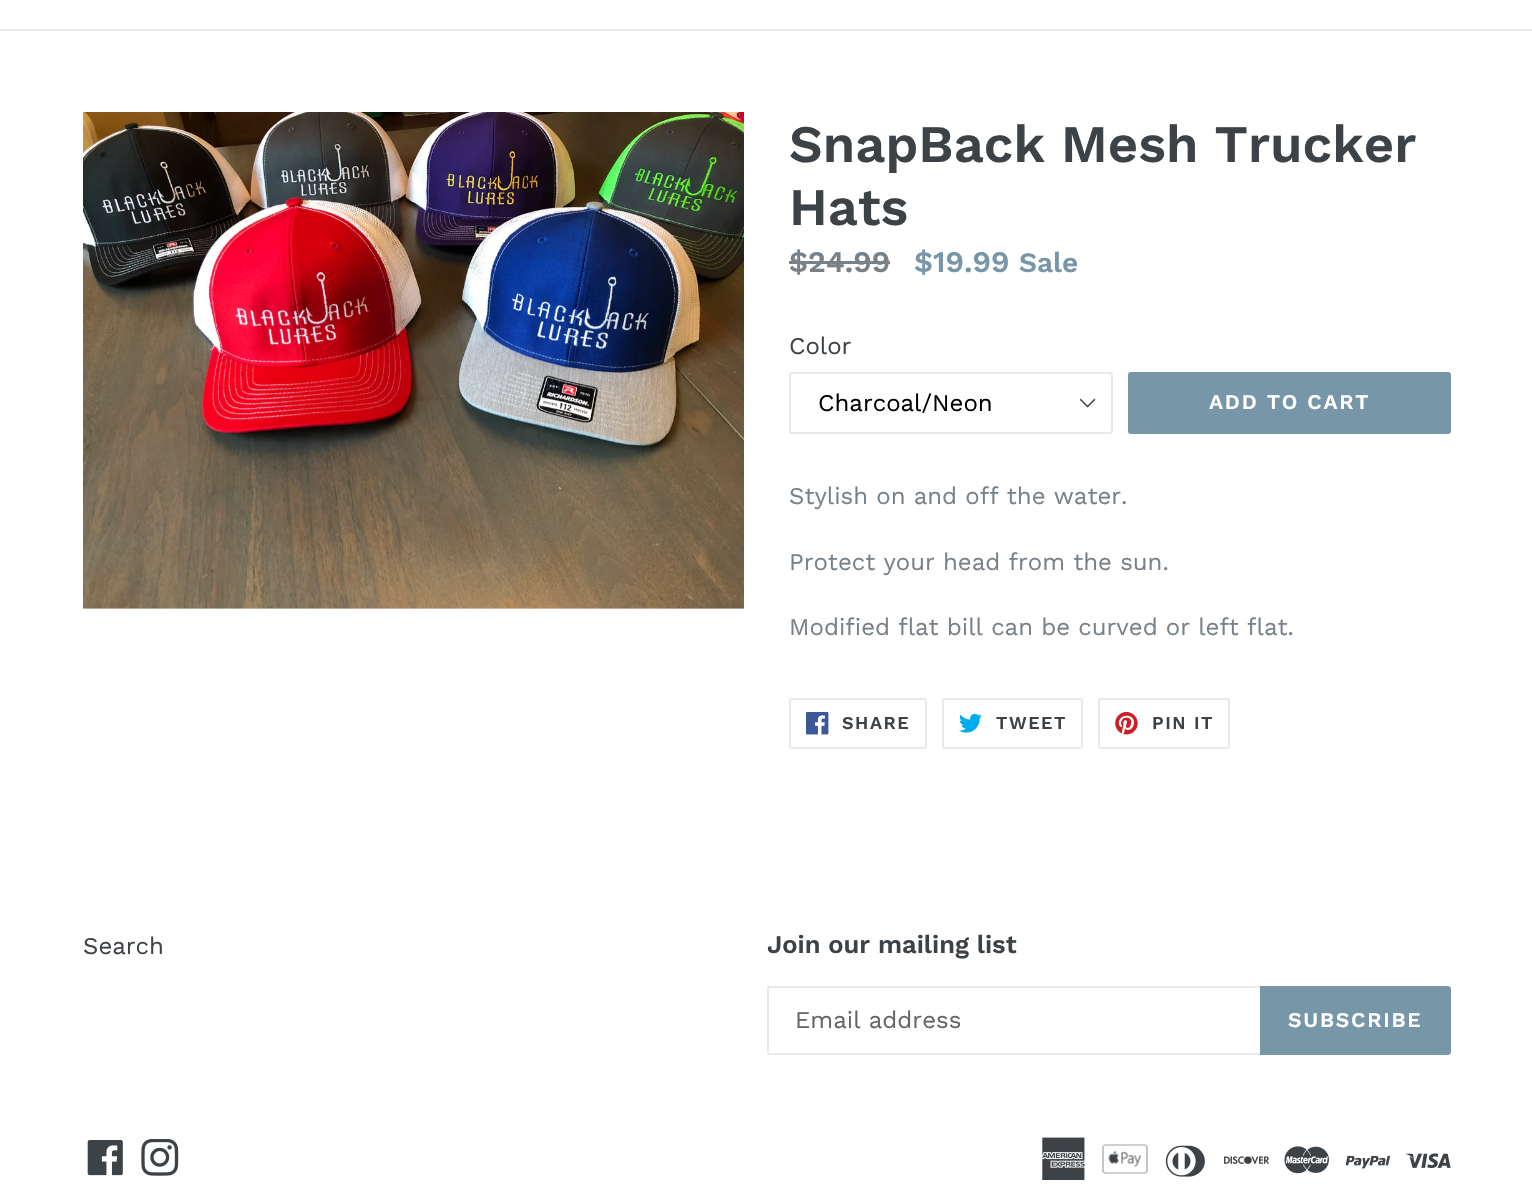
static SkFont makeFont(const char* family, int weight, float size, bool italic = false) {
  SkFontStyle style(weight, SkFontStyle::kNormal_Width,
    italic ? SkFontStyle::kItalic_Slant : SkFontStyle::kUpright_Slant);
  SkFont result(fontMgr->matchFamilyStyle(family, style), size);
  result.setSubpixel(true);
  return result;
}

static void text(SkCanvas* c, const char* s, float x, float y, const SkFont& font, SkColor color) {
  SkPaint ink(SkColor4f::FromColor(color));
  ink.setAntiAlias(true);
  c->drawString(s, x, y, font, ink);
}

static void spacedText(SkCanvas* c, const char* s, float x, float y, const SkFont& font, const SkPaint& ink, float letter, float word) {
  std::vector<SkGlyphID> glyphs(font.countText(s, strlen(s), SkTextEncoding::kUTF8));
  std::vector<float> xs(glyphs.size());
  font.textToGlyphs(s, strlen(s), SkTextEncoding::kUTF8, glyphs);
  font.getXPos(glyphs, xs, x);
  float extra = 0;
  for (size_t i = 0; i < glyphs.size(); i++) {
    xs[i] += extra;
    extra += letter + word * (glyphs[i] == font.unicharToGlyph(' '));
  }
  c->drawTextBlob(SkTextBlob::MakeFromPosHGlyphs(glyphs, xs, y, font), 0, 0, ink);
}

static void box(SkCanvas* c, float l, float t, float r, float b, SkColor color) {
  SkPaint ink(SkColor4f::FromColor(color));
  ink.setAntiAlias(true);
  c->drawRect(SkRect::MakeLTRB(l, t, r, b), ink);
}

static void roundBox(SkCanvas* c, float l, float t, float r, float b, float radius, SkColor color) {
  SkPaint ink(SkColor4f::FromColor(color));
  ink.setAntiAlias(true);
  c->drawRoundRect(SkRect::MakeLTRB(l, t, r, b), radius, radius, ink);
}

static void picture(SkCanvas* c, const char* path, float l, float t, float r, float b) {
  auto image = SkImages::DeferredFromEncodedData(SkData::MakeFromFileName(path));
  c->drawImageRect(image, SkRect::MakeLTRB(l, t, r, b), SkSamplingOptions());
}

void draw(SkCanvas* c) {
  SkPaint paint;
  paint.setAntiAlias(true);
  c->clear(0xffffffff);
  box(c, 0, 29, 1532, 31, 0xffe8e9eb);
  picture(c, "img_01.png", 83, 112, 744, 609);
  SkFont face1 = makeFont("Work Sans", 600, 52.5f);
  text(c, "SnapBack Mesh Trucker", 789, 162, face1, 0xff3d4246);
  text(c, "Hats", 789, 225, face1, 0xff3d4246);
  SkFont face2 = makeFont("Work Sans", 600, 30);
  text(c, "$24.99", 789, 272, face2, 0xff788188);
  box(c, 789, 261, 890, 264, 0xff788188);
  text(c, "$19.99", 914, 272, face2, 0xff7796a8);
  SkFont face3 = makeFont("Work Sans", 600, 28);
  text(c, "Sale", 1019, 272, face3, 0xff7796a8);
  SkFont face4 = makeFont("Work Sans", 400, 24);
  text(c, "Color", 789, 354, face4, 0xff3d4246);
  picture(c, "img_02.png", 1079, 398, 1096, 408);
  paint.setStyle(SkPaint::kStroke_Style);
  paint.setStrokeWidth(2);
  paint.setColor(0xffe8e9eb);
  c->drawRoundRect(SkRect::MakeLTRB(790, 373, 1112, 433), 2, 2, paint);
  text(c, "Charcoal/Neon", 818, 411, face4, 0xff000000);
  roundBox(c, 1128, 372, 1451, 434, 3, 0xff7796a8);
  SkFont face5 = makeFont("Work Sans", 600, 21);
  paint.setStyle(SkPaint::kFill_Style);
  paint.setColor(0xffffffff);
  spacedText(c, "ADD TO CART", 1209, 409, face5, paint, 1.75f, 0);
  text(c, "Stylish on and off the water.", 789, 504, face4, 0xff788188);
  text(c, "Protect your head from the sun.", 789, 570, face4, 0xff788188);
  text(c, "Modified flat bill can be curved or left flat.", 789, 635, face4, 0xff788188);
  paint.setStyle(SkPaint::kStroke_Style);
  paint.setColor(0xffe8e9eb);
  c->drawRoundRect(SkRect::MakeLTRB(790, 699, 926, 748), 2, 2, paint);
  picture(c, "img_03.png", 806, 712, 829, 735);
  SkFont face6 = makeFont("Work Sans", 600, 18);
  paint.setStyle(SkPaint::kFill_Style);
  paint.setColor(0xff3d4246);
  spacedText(c, "SHARE", 842, 729, face6, paint, 1.5f, 0);
  paint.setStyle(SkPaint::kStroke_Style);
  paint.setColor(0xffe8e9eb);
  c->drawRoundRect(SkRect::MakeLTRB(943, 699, 1082, 748), 2, 2, paint);
  picture(c, "img_04.png", 959, 713, 982, 733);
  paint.setStyle(SkPaint::kFill_Style);
  paint.setColor(0xff3d4246);
  spacedText(c, "TWEET", 996, 729, face6, paint, 1.5f, 0);
  paint.setStyle(SkPaint::kStroke_Style);
  paint.setColor(0xffe8e9eb);
  c->drawRoundRect(SkRect::MakeLTRB(1099, 699, 1229, 748), 2, 2, paint);
  picture(c, "img_05.png", 1115, 712, 1138, 735);
  paint.setStyle(SkPaint::kFill_Style);
  paint.setColor(0xff3d4246);
  spacedText(c, "PIN IT", 1152, 729, face6, paint, 1.5f, 0);
  text(c, "Search", 83, 954, face4, 0xff3d4246);
  SkFont face7 = makeFont("Work Sans", 600, 25.5f);
  text(c, "Join our mailing list", 767, 953, face7, 0xff3d4246);
  box(c, 768, 986, 1260, 988, 0xffe8e9eb);
  box(c, 768, 1053, 1260, 1055, 0xffe8e9eb);
  box(c, 767, 987, 769, 1053, 0xffe8e9eb);
  text(c, "Email address", 795, 1028, face4, 0xff666666);
  paint.setColor(0xff7796a8);
  c->drawPath(SkPathBuilder().moveTo(1260, 986).lineTo(1448, 986).cubicTo(1449.5f, 986, 1451, 987.5f, 1451, 989).lineTo(1451, 1052).cubicTo(1451, 1053.5f, 1449.5f, 1055, 1448, 1055).lineTo(1260, 1055).close().detach(), paint);
  paint.setColor(0xffffffff);
  spacedText(c, "SUBSCRIBE", 1288, 1027, face5, paint, 1.75f, 0);
  picture(c, "img_06.png", 87, 1140, 123, 1176);
  picture(c, "img_07.png", 141, 1139, 179, 1176);
  picture(c, "img_08.png", 1042, 1137, 1085, 1180);
  picture(c, "img_09.png", 1102, 1144, 1148, 1174);
  picture(c, "img_10.png", 1165, 1145, 1205, 1177);
  picture(c, "img_11.png", 1224, 1156, 1269, 1164);
  picture(c, "img_12.png", 1284, 1146, 1329, 1174);
  picture(c, "img_13.png", 1346, 1155, 1391, 1169);
  picture(c, "img_14.png", 1406, 1153, 1451, 1168);
}
